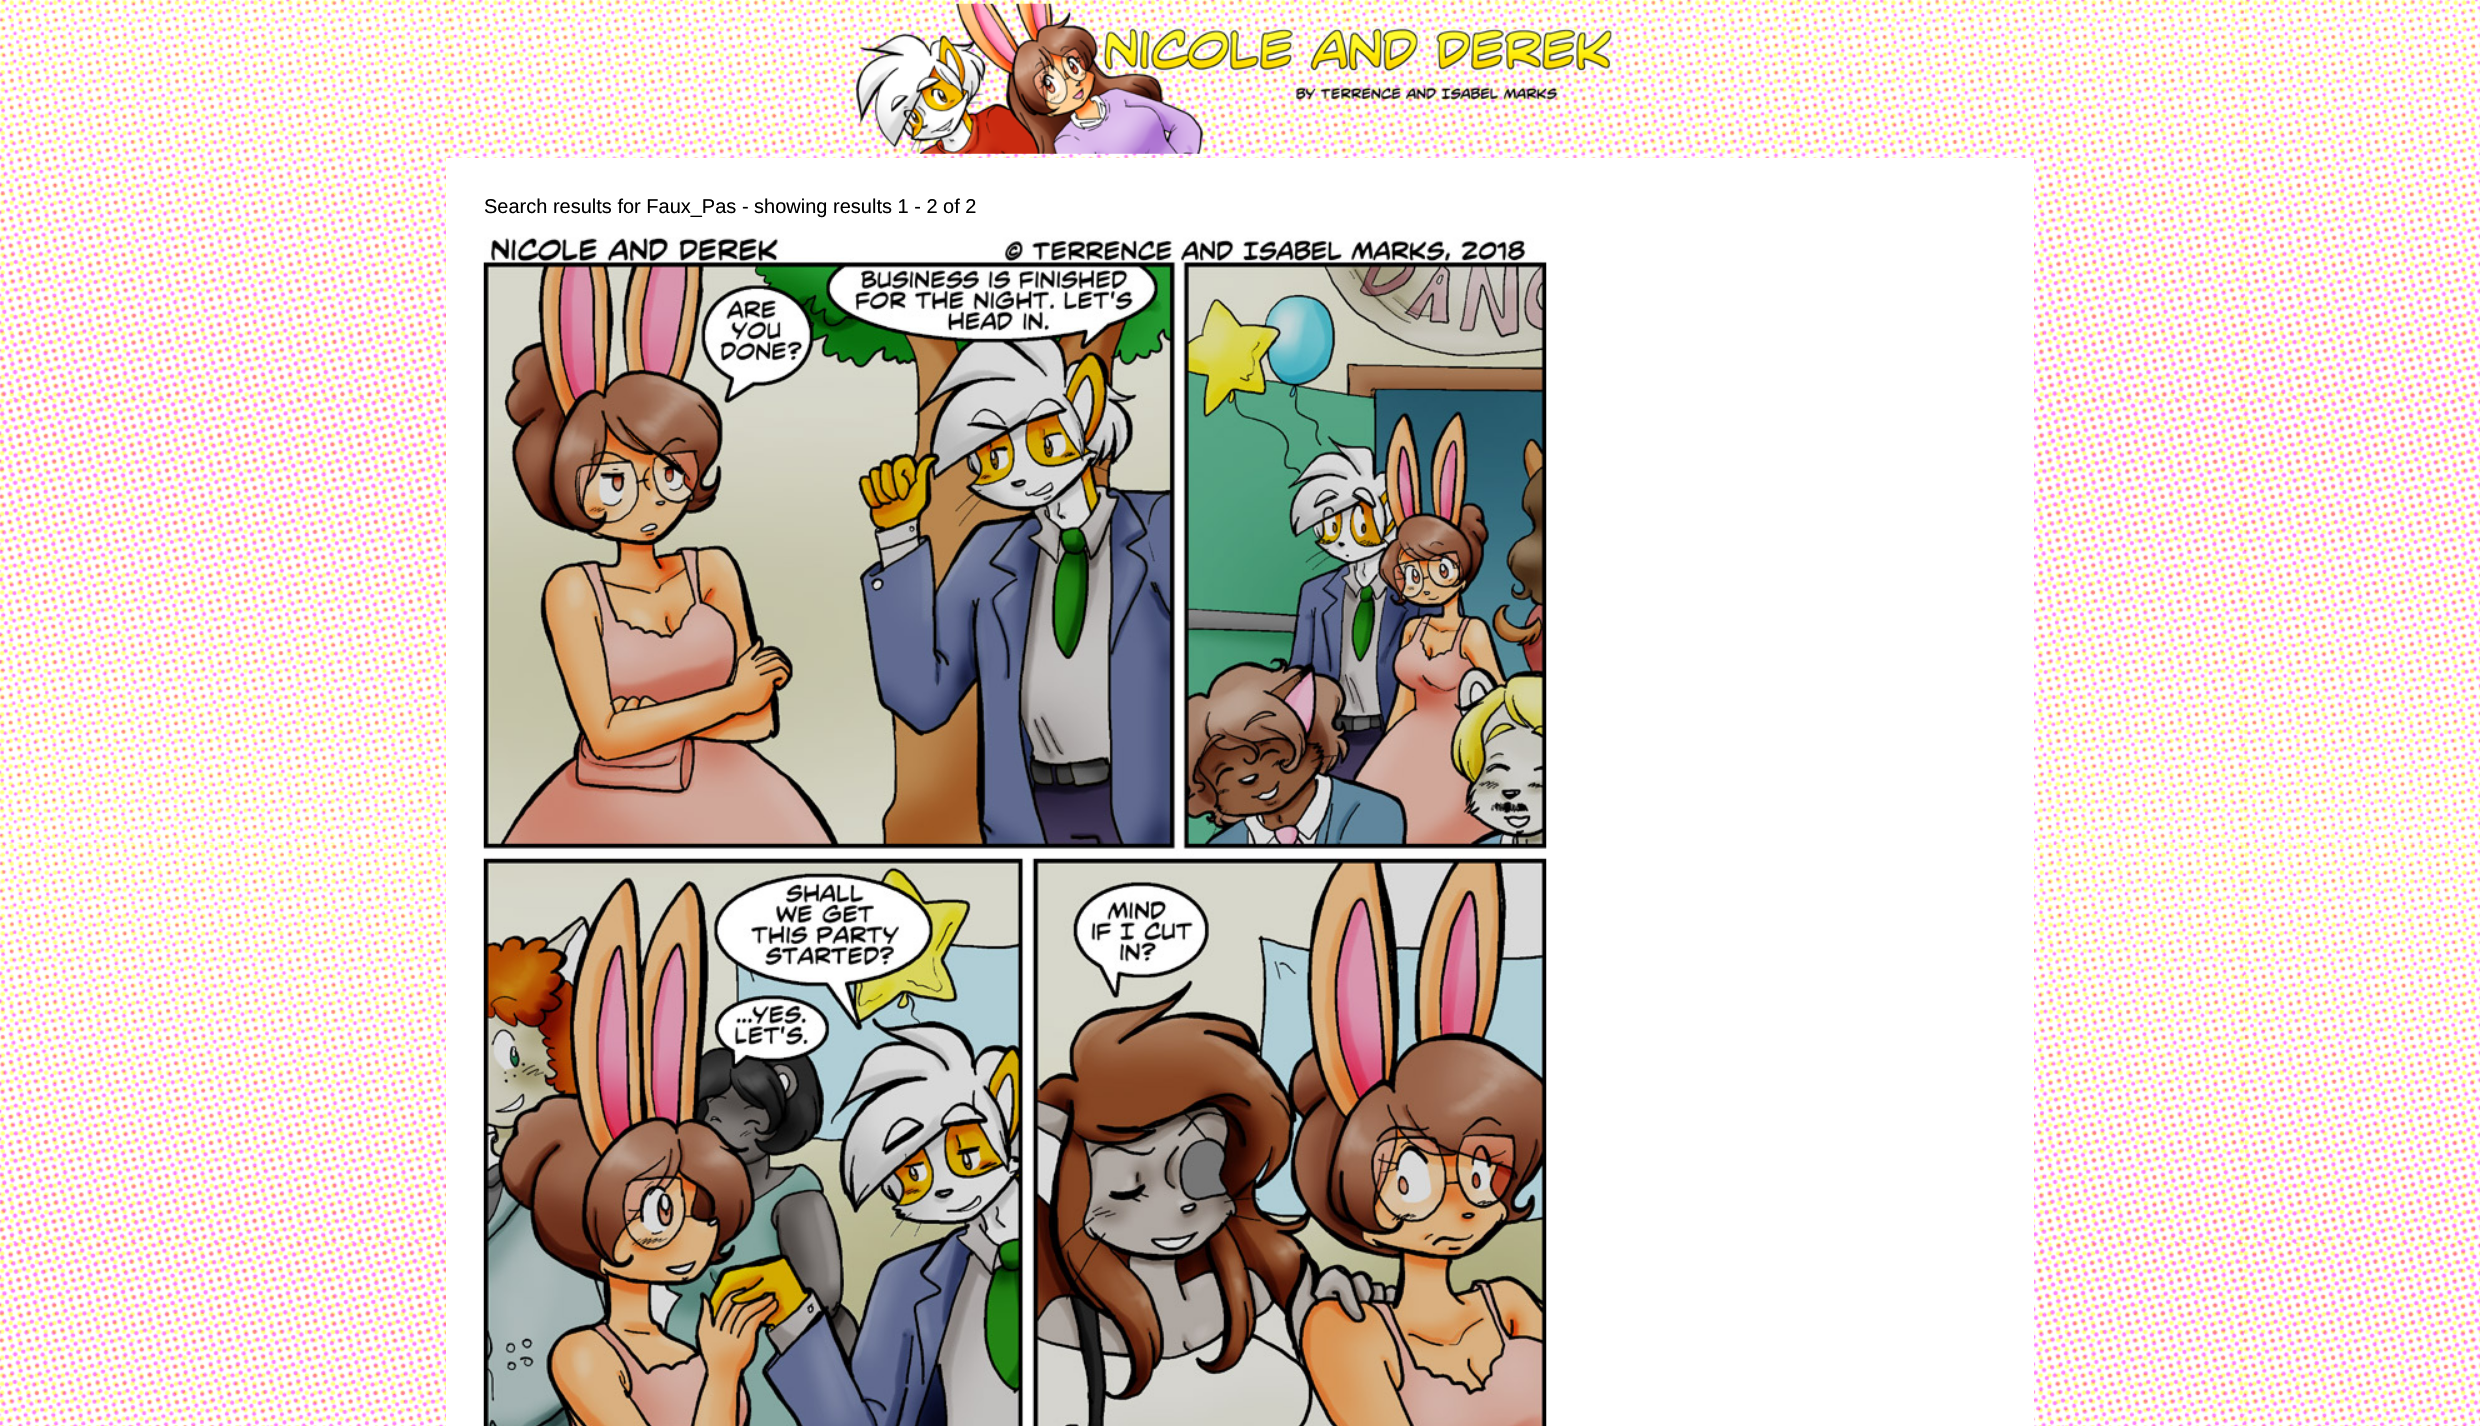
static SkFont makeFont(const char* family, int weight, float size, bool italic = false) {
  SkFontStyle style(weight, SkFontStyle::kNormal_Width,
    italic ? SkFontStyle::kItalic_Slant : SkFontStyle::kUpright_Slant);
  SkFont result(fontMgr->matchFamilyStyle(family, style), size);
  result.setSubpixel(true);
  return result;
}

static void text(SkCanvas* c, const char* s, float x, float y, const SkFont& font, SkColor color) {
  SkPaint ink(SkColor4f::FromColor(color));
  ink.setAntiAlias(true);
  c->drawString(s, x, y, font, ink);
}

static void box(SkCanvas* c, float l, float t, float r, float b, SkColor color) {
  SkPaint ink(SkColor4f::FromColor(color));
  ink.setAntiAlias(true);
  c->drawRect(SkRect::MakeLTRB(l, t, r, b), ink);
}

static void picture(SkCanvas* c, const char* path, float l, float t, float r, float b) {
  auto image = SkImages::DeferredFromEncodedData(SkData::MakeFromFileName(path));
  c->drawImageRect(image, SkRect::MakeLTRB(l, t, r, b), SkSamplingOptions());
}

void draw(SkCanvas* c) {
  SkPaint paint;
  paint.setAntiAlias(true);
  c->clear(0xffffffff);
  picture(c, "img_01.png", 0, 0, 2480, 1426);
  picture(c, "img_02.png", 856, 3, 1613, 154);
  box(c, 446, 158, 2034, 1426, 0xffffffff);
  SkFont face1 = makeFont("Liberation Sans", 400, 20);
  text(c, "Search results for Faux_Pas - showing results 1 - 2 of 2", 484, 213, face1, 0xff000000);
  picture(c, "img_03.png", 483, 237, 1547, 1426);
}
